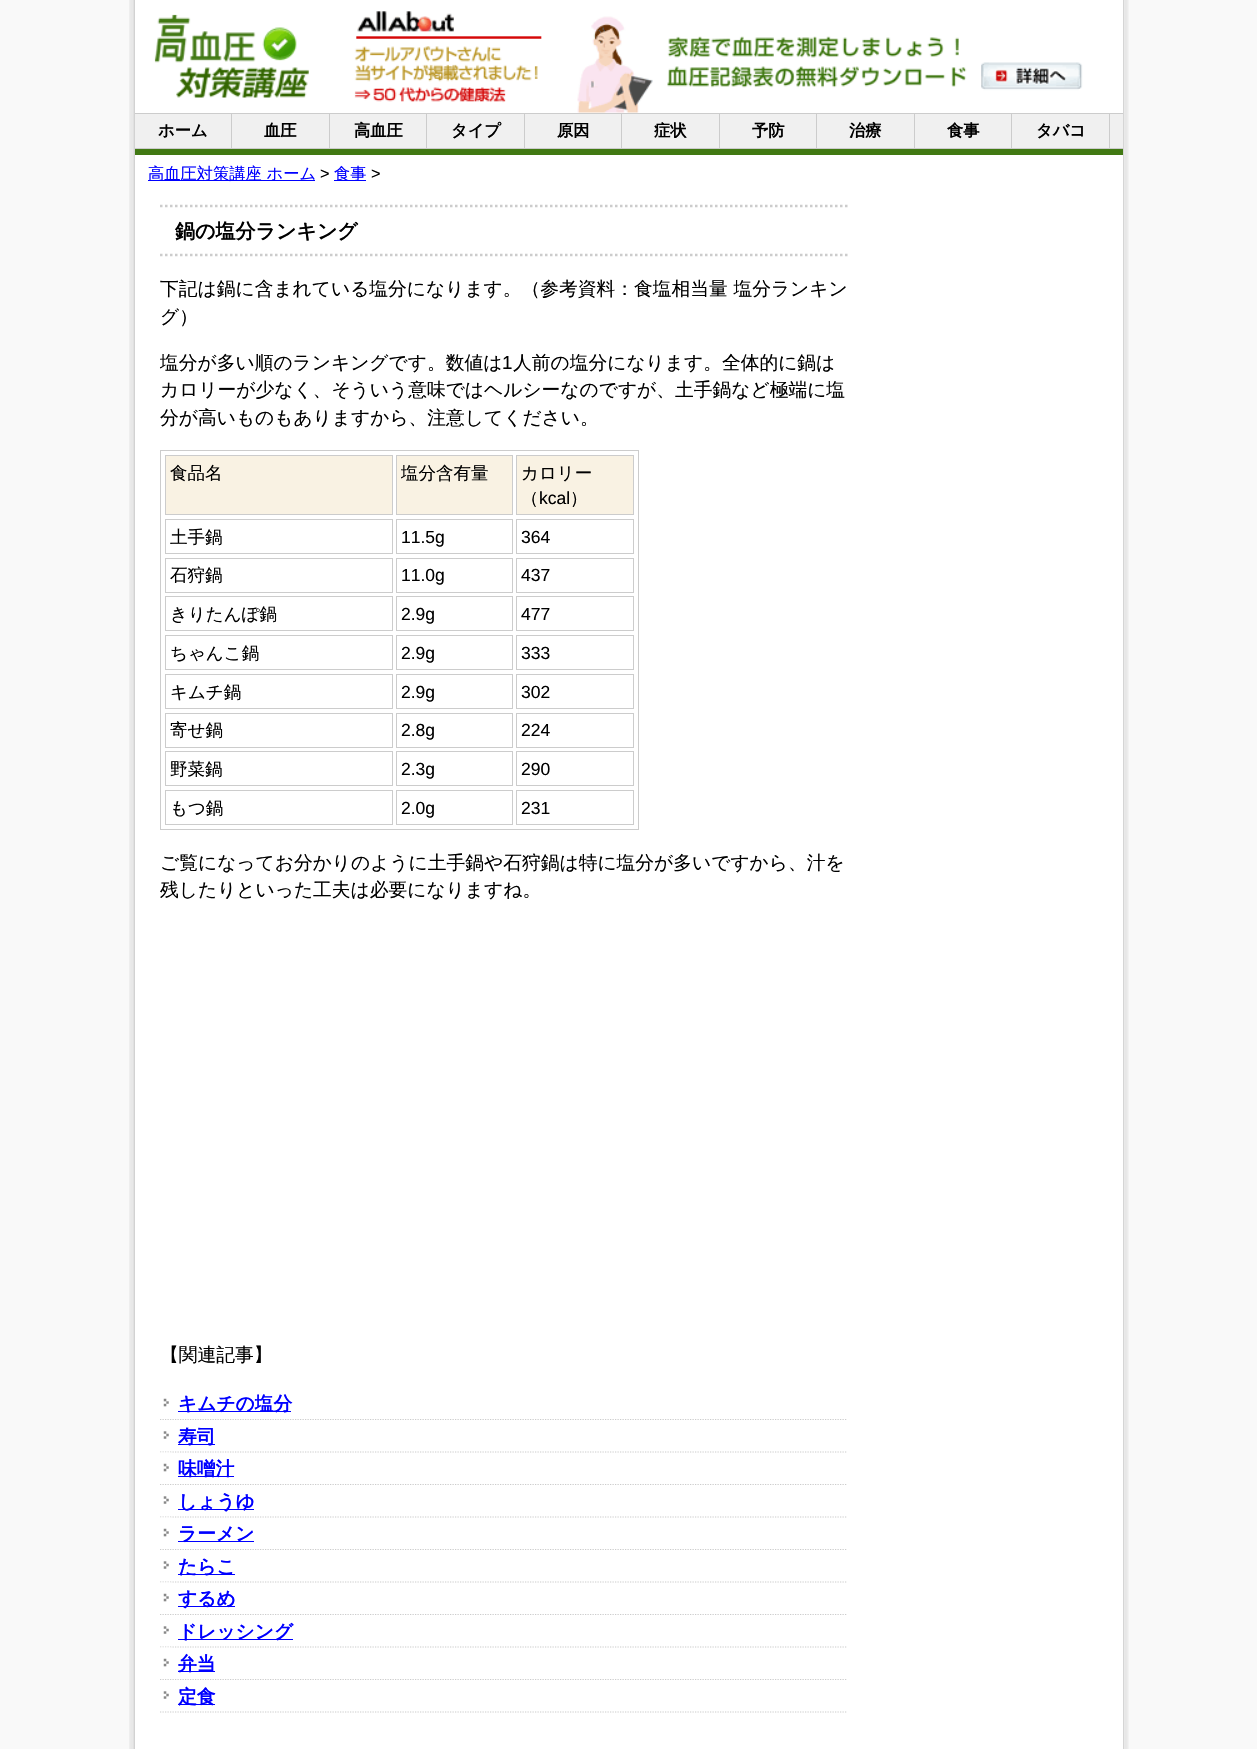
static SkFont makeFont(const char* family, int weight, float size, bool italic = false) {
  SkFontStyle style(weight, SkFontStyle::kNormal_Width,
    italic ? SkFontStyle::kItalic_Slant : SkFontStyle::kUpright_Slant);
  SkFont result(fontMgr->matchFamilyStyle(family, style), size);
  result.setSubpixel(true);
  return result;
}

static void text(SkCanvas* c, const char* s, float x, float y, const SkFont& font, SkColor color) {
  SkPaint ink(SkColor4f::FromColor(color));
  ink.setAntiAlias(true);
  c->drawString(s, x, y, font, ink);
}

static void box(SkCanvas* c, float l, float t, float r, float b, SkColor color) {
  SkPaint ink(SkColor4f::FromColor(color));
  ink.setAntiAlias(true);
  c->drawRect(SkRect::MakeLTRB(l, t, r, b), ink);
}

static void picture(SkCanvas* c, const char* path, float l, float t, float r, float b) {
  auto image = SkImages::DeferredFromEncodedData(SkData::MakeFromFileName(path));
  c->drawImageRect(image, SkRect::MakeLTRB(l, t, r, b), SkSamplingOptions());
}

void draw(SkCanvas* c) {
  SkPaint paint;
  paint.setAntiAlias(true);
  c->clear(0xfff9f9f9);
  picture(c, "img_01.png", 129, 0, 1129, 1749);
  box(c, 135, 0, 1123, 1749, 0xffffffff);
  picture(c, "img_02.png", 154, 14, 309, 98);
  picture(c, "img_03.png", 354, 11, 542, 103);
  picture(c, "img_04.png", 577, 16, 1083, 113);
  box(c, 135, 114, 1123, 148, 0xfff0f0f0);
  box(c, 135, 113, 1123, 114, 0xffcccccc);
  box(c, 135, 148, 1123, 149, 0xffcccccc);
  box(c, 231, 114, 232, 148, 0xffcccccc);
  SkFont face1 = makeFont("WenQuanYi Zen Hei", 700, 16.25f);
  text(c, "ホーム", 158, 136, face1, 0xff000000);
  box(c, 329, 114, 330, 148, 0xffcccccc);
  text(c, "血圧", 264, 136, face1, 0xff000000);
  box(c, 426, 114, 427, 148, 0xffcccccc);
  text(c, "高血圧", 354, 136, face1, 0xff000000);
  box(c, 524, 114, 525, 148, 0xffcccccc);
  text(c, "タイプ", 451, 136, face1, 0xff000000);
  box(c, 621, 114, 622, 148, 0xffcccccc);
  text(c, "原因", 557, 136, face1, 0xff000000);
  box(c, 719, 114, 720, 148, 0xffcccccc);
  text(c, "症状", 654, 136, face1, 0xff000000);
  box(c, 816, 114, 817, 148, 0xffcccccc);
  text(c, "予防", 752, 136, face1, 0xff000000);
  box(c, 914, 114, 915, 148, 0xffcccccc);
  text(c, "治療", 849, 136, face1, 0xff000000);
  box(c, 1011, 114, 1012, 148, 0xffcccccc);
  text(c, "食事", 947, 136, face1, 0xff000000);
  box(c, 1109, 114, 1110, 148, 0xffcccccc);
  text(c, "タバコ", 1036, 136, face1, 0xff000000);
  box(c, 135, 149, 1123, 155, 0xff417913);
  box(c, 148, 180, 315, 181, 0xff0000ff);
  SkFont face2 = makeFont("WenQuanYi Zen Hei", 500, 16.25f);
  text(c, "高血圧対策講座 ホーム", 148, 179, face2, 0xff0000ff);
  SkFont face3 = makeFont("Liberation Sans", 400, 16.25f);
  text(c, ">", 320, 179, face3, 0xff000000);
  box(c, 334, 180, 366, 181, 0xff0000ff);
  text(c, "食事", 334, 179, face2, 0xff0000ff);
  text(c, ">", 371, 179, face3, 0xff000000);
  paint.setStyle(SkPaint::kStroke_Style);
  paint.setStrokeWidth(2.5f);
  paint.setColor(0xffcccccc);
  paint.setPathEffect(SkDashPathEffect::Make({{2.5f, 2.5f}}, 0));
  c->drawPath(SkPathBuilder().moveTo(160, 206).lineTo(847.5f, 206).detach(), paint);
  paint.setPathEffect(nullptr);
  paint.setPathEffect(SkDashPathEffect::Make({{2.5f, 2.5f}}, 0));
  c->drawPath(SkPathBuilder().moveTo(160, 255).lineTo(847.5f, 255).detach(), paint);
  paint.setPathEffect(nullptr);
  SkFont face4 = makeFont("WenQuanYi Zen Hei", 700, 20);
  text(c, "鍋の塩分ランキング", 175, 238, face4, 0xff000000);
  SkFont face5 = makeFont("WenQuanYi Zen Hei", 500, 18.75f);
  text(c, "下記は鍋に含まれている塩分になります。（参考資料：食塩相当量 塩分ランキン", 160, 295, face5, 0xff000000);
  text(c, "グ）", 160, 323, face5, 0xff000000);
  text(c, "塩分が多い順のランキングです。数値は", 160, 369, face5, 0xff000000);
  SkFont face6 = makeFont("Liberation Sans", 400, 18.75f);
  text(c, "1", 502, 369, face6, 0xff000000);
  text(c, "人前の塩分になります。全体的に鍋は", 513, 369, face5, 0xff000000);
  text(c, "カロリーが少なく、そういう意味ではヘルシーなのですが、土手鍋など極端に塩", 160, 396, face5, 0xff000000);
  text(c, "分が高いものもありますから、注意してください。", 160, 424, face5, 0xff000000);
  paint.setStrokeWidth(1);
  c->drawRect(SkRect::MakeLTRB(160.5f, 450.5f, 638.5f, 829.5f), paint);
  paint.setStyle(SkPaint::kFill_Style);
  paint.setColor(0xfff9f2e3);
  c->drawRect(SkRect::MakeLTRB(165.5f, 455.5f, 392.5f, 514.5f), paint);
  paint.setStyle(SkPaint::kStroke_Style);
  paint.setColor(0xffcccccc);
  c->drawRect(SkRect::MakeLTRB(165.5f, 455.5f, 392.5f, 514.5f), paint);
  SkFont face7 = makeFont("WenQuanYi Zen Hei", 500, 17.5f);
  text(c, "食品名", 170, 479, face7, 0xff000000);
  paint.setStyle(SkPaint::kFill_Style);
  paint.setColor(0xfff9f2e3);
  c->drawRect(SkRect::MakeLTRB(396.5f, 455.5f, 512.5f, 514.5f), paint);
  paint.setStyle(SkPaint::kStroke_Style);
  paint.setColor(0xffcccccc);
  c->drawRect(SkRect::MakeLTRB(396.5f, 455.5f, 512.5f, 514.5f), paint);
  text(c, "塩分含有量", 401, 479, face7, 0xff000000);
  paint.setStyle(SkPaint::kFill_Style);
  paint.setColor(0xfff9f2e3);
  c->drawRect(SkRect::MakeLTRB(516.5f, 455.5f, 633.5f, 514.5f), paint);
  paint.setStyle(SkPaint::kStroke_Style);
  paint.setColor(0xffcccccc);
  c->drawRect(SkRect::MakeLTRB(516.5f, 455.5f, 633.5f, 514.5f), paint);
  text(c, "カロリー", 521, 479, face7, 0xff000000);
  text(c, "（", 521, 504, face7, 0xff000000);
  SkFont face8 = makeFont("Liberation Sans", 400, 17.5f);
  text(c, "kcal", 539, 504, face8, 0xff000000);
  text(c, "）", 570, 504, face7, 0xff000000);
  c->drawRect(SkRect::MakeLTRB(165.5f, 519.5f, 392.5f, 553.5f), paint);
  text(c, "土手鍋", 170, 543, face7, 0xff000000);
  c->drawRect(SkRect::MakeLTRB(396.5f, 519.5f, 512.5f, 553.5f), paint);
  text(c, "11.5g", 401, 543, face8, 0xff000000);
  c->drawRect(SkRect::MakeLTRB(516.5f, 519.5f, 633.5f, 553.5f), paint);
  text(c, "364", 521, 543, face8, 0xff000000);
  c->drawRect(SkRect::MakeLTRB(165.5f, 558.5f, 392.5f, 592.5f), paint);
  text(c, "石狩鍋", 170, 581, face7, 0xff000000);
  c->drawRect(SkRect::MakeLTRB(396.5f, 558.5f, 512.5f, 592.5f), paint);
  text(c, "11.0g", 401, 581, face8, 0xff000000);
  c->drawRect(SkRect::MakeLTRB(516.5f, 558.5f, 633.5f, 592.5f), paint);
  text(c, "437", 521, 581, face8, 0xff000000);
  c->drawRect(SkRect::MakeLTRB(165.5f, 596.5f, 392.5f, 630.5f), paint);
  text(c, "きりたんぽ鍋", 170, 620, face7, 0xff000000);
  c->drawRect(SkRect::MakeLTRB(396.5f, 596.5f, 512.5f, 630.5f), paint);
  text(c, "2.9g", 401, 620, face8, 0xff000000);
  c->drawRect(SkRect::MakeLTRB(516.5f, 596.5f, 633.5f, 630.5f), paint);
  text(c, "477", 521, 620, face8, 0xff000000);
  c->drawRect(SkRect::MakeLTRB(165.5f, 635.5f, 392.5f, 669.5f), paint);
  text(c, "ちゃんこ鍋", 170, 659, face7, 0xff000000);
  c->drawRect(SkRect::MakeLTRB(396.5f, 635.5f, 512.5f, 669.5f), paint);
  text(c, "2.9g", 401, 659, face8, 0xff000000);
  c->drawRect(SkRect::MakeLTRB(516.5f, 635.5f, 633.5f, 669.5f), paint);
  text(c, "333", 521, 659, face8, 0xff000000);
  c->drawRect(SkRect::MakeLTRB(165.5f, 674.5f, 392.5f, 708.5f), paint);
  text(c, "キムチ鍋", 170, 698, face7, 0xff000000);
  c->drawRect(SkRect::MakeLTRB(396.5f, 674.5f, 512.5f, 708.5f), paint);
  text(c, "2.9g", 401, 698, face8, 0xff000000);
  c->drawRect(SkRect::MakeLTRB(516.5f, 674.5f, 633.5f, 708.5f), paint);
  text(c, "302", 521, 698, face8, 0xff000000);
  c->drawRect(SkRect::MakeLTRB(165.5f, 713.5f, 392.5f, 747.5f), paint);
  text(c, "寄せ鍋", 170, 736, face7, 0xff000000);
  c->drawRect(SkRect::MakeLTRB(396.5f, 713.5f, 512.5f, 747.5f), paint);
  text(c, "2.8g", 401, 736, face8, 0xff000000);
  c->drawRect(SkRect::MakeLTRB(516.5f, 713.5f, 633.5f, 747.5f), paint);
  text(c, "224", 521, 736, face8, 0xff000000);
  c->drawRect(SkRect::MakeLTRB(165.5f, 751.5f, 392.5f, 785.5f), paint);
  text(c, "野菜鍋", 170, 775, face7, 0xff000000);
  c->drawRect(SkRect::MakeLTRB(396.5f, 751.5f, 512.5f, 785.5f), paint);
  text(c, "2.3g", 401, 775, face8, 0xff000000);
  c->drawRect(SkRect::MakeLTRB(516.5f, 751.5f, 633.5f, 785.5f), paint);
  text(c, "290", 521, 775, face8, 0xff000000);
  c->drawRect(SkRect::MakeLTRB(165.5f, 790.5f, 392.5f, 824.5f), paint);
  text(c, "もつ鍋", 170, 814, face7, 0xff000000);
  c->drawRect(SkRect::MakeLTRB(396.5f, 790.5f, 512.5f, 824.5f), paint);
  text(c, "2.0g", 401, 814, face8, 0xff000000);
  c->drawRect(SkRect::MakeLTRB(516.5f, 790.5f, 633.5f, 824.5f), paint);
  text(c, "231", 521, 814, face8, 0xff000000);
  text(c, "ご覧になってお分かりのように土手鍋や石狩鍋は特に塩分が多いですから、汁を", 160, 869, face5, 0xff000000);
  text(c, "残したりといった工夫は必要になりますね。", 160, 896, face5, 0xff000000);
  text(c, "【関連記事】", 160, 1361, face5, 0xff000000);
  picture(c, "img_05.png", 163, 1398, 169, 1407);
  paint.setStrokeWidth(1.2f);
  paint.setPathEffect(SkDashPathEffect::Make({{1.25f, 1.25f}}, 0));
  c->drawPath(SkPathBuilder().moveTo(160, 1419.5f).lineTo(847.5f, 1419.5f).detach(), paint);
  paint.setPathEffect(nullptr);
  box(c, 178, 1411, 291, 1412, 0xff0000ff);
  SkFont face9 = makeFont("WenQuanYi Zen Hei", 700, 18.75f);
  text(c, "キムチの塩分", 178, 1410, face9, 0xff0000ff);
  picture(c, "img_06.png", 160, 1420, 171, 1439);
  paint.setPathEffect(SkDashPathEffect::Make({{1.25f, 1.25f}}, 0));
  c->drawPath(SkPathBuilder().moveTo(160, 1452).lineTo(847.5f, 1452).detach(), paint);
  paint.setPathEffect(nullptr);
  box(c, 178, 1444, 215, 1445, 0xff0000ff);
  text(c, "寿司", 178, 1443, face9, 0xff0000ff);
  picture(c, "img_07.png", 160, 1452, 171, 1472);
  paint.setPathEffect(SkDashPathEffect::Make({{1.25f, 1.25f}}, 0));
  c->drawPath(SkPathBuilder().moveTo(160, 1484.5f).lineTo(847.5f, 1484.5f).detach(), paint);
  paint.setPathEffect(nullptr);
  box(c, 178, 1476, 234, 1477, 0xff0000ff);
  text(c, "味噌汁", 178, 1475, face9, 0xff0000ff);
  picture(c, "img_06.png", 160, 1485, 171, 1504);
  paint.setPathEffect(SkDashPathEffect::Make({{1.25f, 1.25f}}, 0));
  c->drawPath(SkPathBuilder().moveTo(160, 1517).lineTo(847.5f, 1517).detach(), paint);
  paint.setPathEffect(nullptr);
  box(c, 178, 1509, 254, 1510, 0xff0000ff);
  text(c, "しょうゆ", 178, 1508, face9, 0xff0000ff);
  picture(c, "img_07.png", 160, 1517, 171, 1537);
  paint.setPathEffect(SkDashPathEffect::Make({{1.25f, 1.25f}}, 0));
  c->drawPath(SkPathBuilder().moveTo(160, 1549.5f).lineTo(847.5f, 1549.5f).detach(), paint);
  paint.setPathEffect(nullptr);
  box(c, 178, 1541, 254, 1542, 0xff0000ff);
  text(c, "ラーメン", 178, 1540, face9, 0xff0000ff);
  picture(c, "img_06.png", 160, 1550, 171, 1569);
  paint.setPathEffect(SkDashPathEffect::Make({{1.25f, 1.25f}}, 0));
  c->drawPath(SkPathBuilder().moveTo(160, 1582).lineTo(847.5f, 1582).detach(), paint);
  paint.setPathEffect(nullptr);
  box(c, 178, 1574, 235, 1575, 0xff0000ff);
  text(c, "たらこ", 178, 1573, face9, 0xff0000ff);
  picture(c, "img_07.png", 160, 1582, 171, 1602);
  paint.setPathEffect(SkDashPathEffect::Make({{1.25f, 1.25f}}, 0));
  c->drawPath(SkPathBuilder().moveTo(160, 1614.5f).lineTo(847.5f, 1614.5f).detach(), paint);
  paint.setPathEffect(nullptr);
  box(c, 178, 1606, 235, 1607, 0xff0000ff);
  text(c, "するめ", 178, 1605, face9, 0xff0000ff);
  picture(c, "img_06.png", 160, 1615, 171, 1634);
  paint.setPathEffect(SkDashPathEffect::Make({{1.25f, 1.25f}}, 0));
  c->drawPath(SkPathBuilder().moveTo(160, 1647).lineTo(847.5f, 1647).detach(), paint);
  paint.setPathEffect(nullptr);
  box(c, 178, 1639, 293, 1640, 0xff0000ff);
  text(c, "ドレッシング", 178, 1638, face9, 0xff0000ff);
  picture(c, "img_07.png", 160, 1647, 171, 1667);
  paint.setPathEffect(SkDashPathEffect::Make({{1.25f, 1.25f}}, 0));
  c->drawPath(SkPathBuilder().moveTo(160, 1679.5f).lineTo(847.5f, 1679.5f).detach(), paint);
  paint.setPathEffect(nullptr);
  box(c, 178, 1671, 215, 1672, 0xff0000ff);
  text(c, "弁当", 178, 1670, face9, 0xff0000ff);
  picture(c, "img_06.png", 160, 1680, 171, 1699);
  paint.setPathEffect(SkDashPathEffect::Make({{1.25f, 1.25f}}, 0));
  c->drawPath(SkPathBuilder().moveTo(160, 1712).lineTo(847.5f, 1712).detach(), paint);
  paint.setPathEffect(nullptr);
  box(c, 178, 1704, 215, 1705, 0xff0000ff);
  text(c, "定食", 178, 1703, face9, 0xff0000ff);
}
